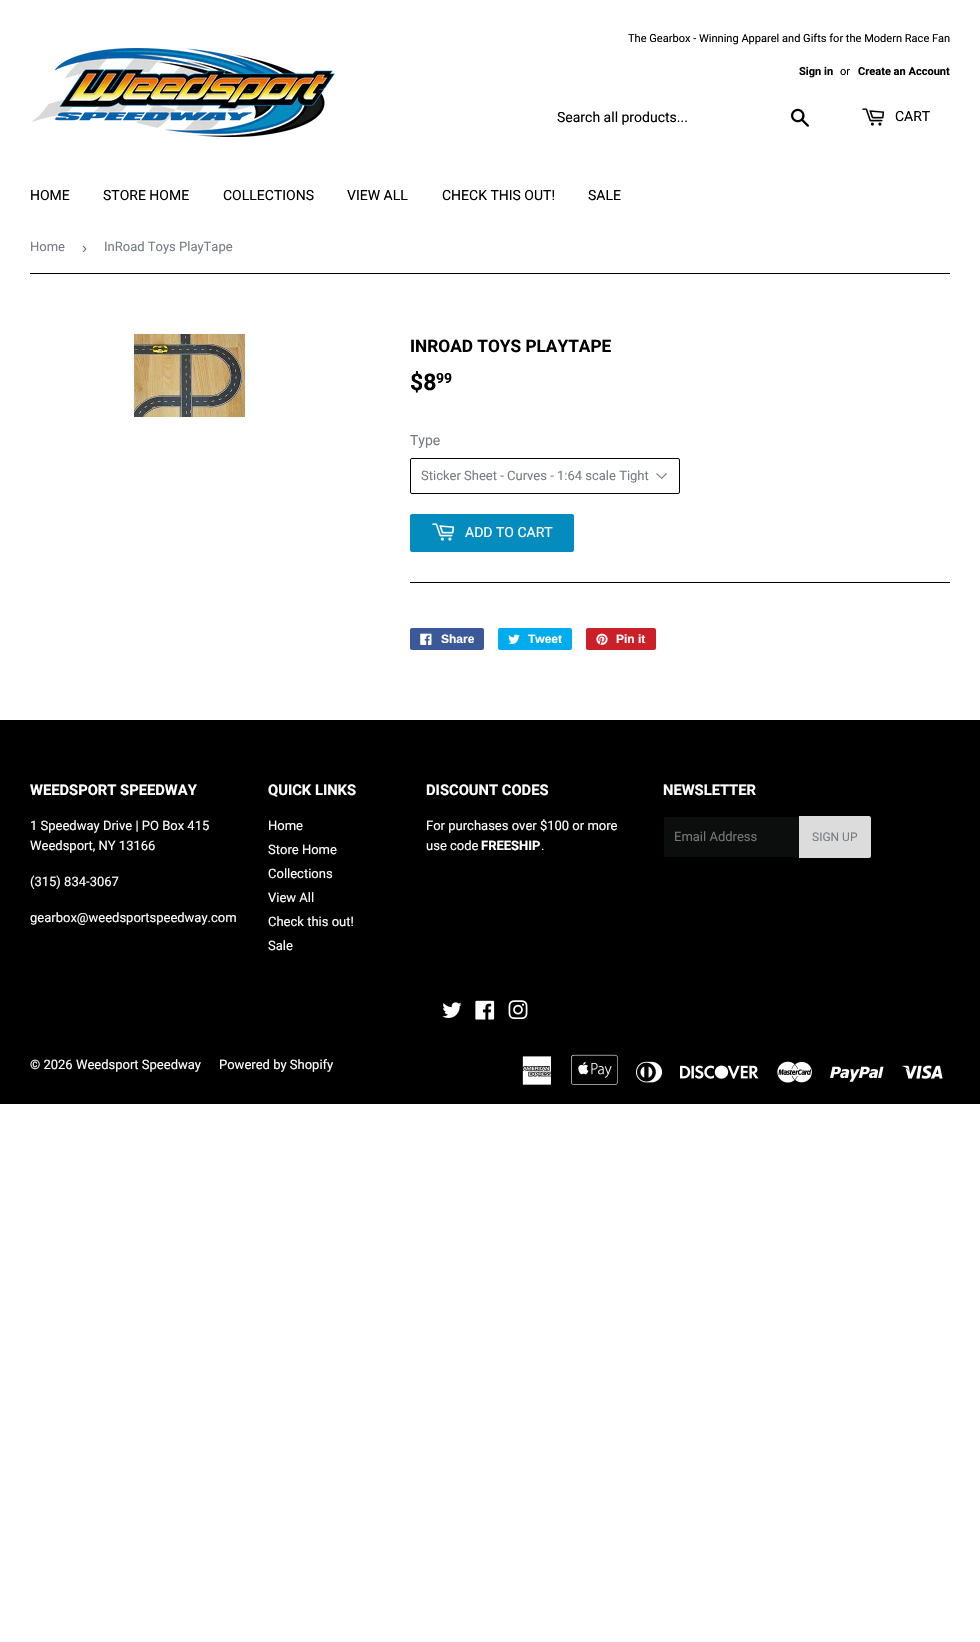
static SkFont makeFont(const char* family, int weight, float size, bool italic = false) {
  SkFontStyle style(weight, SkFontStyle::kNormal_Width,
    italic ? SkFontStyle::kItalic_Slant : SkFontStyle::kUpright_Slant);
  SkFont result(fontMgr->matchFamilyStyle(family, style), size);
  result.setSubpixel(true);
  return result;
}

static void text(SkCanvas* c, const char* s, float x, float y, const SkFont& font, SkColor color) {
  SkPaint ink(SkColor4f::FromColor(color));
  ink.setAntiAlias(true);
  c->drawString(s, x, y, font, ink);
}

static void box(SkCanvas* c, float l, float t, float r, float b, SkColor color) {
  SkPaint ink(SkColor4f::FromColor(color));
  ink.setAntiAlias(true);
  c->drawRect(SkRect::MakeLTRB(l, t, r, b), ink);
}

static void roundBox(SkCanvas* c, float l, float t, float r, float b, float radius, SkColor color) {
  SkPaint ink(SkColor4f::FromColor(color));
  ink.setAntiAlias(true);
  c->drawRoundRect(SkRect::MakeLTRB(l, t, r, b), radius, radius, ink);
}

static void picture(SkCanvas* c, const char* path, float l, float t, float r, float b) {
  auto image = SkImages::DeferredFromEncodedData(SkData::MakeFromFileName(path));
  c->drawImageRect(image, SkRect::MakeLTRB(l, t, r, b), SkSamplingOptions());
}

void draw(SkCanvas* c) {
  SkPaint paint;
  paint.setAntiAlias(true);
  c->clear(0xffffffff);
  picture(c, "img_01.png", 31, 48, 335, 137);
  SkFont face1 = makeFont("Roboto", 400, 11.05f);
  text(c, "The Gearbox - Winning Apparel and Gifts for the Modern Race Fan", 628, 42, face1, 0xff000000);
  SkFont face2 = makeFont("Roboto", 700, 11.05f);
  text(c, "Sign in", 799, 75, face2, 0xff000000);
  text(c, "or", 840, 75, face1, 0xff000000);
  text(c, "Create an Account", 858, 75, face2, 0xff000000);
  SkFont face3 = makeFont("Roboto", 400, 14);
  text(c, "Search all products...", 557, 122, face3, 0xff000000);
  picture(c, "img_02.png", 791, 108, 809, 127);
  picture(c, "img_03.png", 862, 108, 885, 126);
  text(c, "CART", 895, 121, face3, 0xff000000);
  text(c, "HOME", 30, 200, face3, 0xff000000);
  text(c, "STORE HOME", 103, 200, face3, 0xff000000);
  text(c, "COLLECTIONS", 223, 200, face3, 0xff000000);
  text(c, "VIEW ALL", 347, 200, face3, 0xff000000);
  text(c, "CHECK THIS OUT!", 442, 200, face3, 0xff000000);
  text(c, "SALE", 588, 200, face3, 0xff000000);
  box(c, 30, 273, 950, 274, 0xff000000);
  SkFont face4 = makeFont("Roboto", 400, 13);
  text(c, "Home", 30, 251, face4, 0xff787d85);
  SkFont face5 = makeFont("Liberation Sans", 400, 15);
  text(c, "›", 82, 253, face5, 0xff767676);
  text(c, "InRoad Toys PlayTape", 104, 251, face4, 0xff787d85);
  picture(c, "img_04.png", 134, 334, 245, 417);
  SkFont face6 = makeFont("Roboto", 700, 17.25f);
  text(c, "INROAD TOYS PLAYTAPE", 410, 352, face6, 0xff000000);
  SkFont face7 = makeFont("Roboto", 700, 23);
  text(c, "$8", 410, 390, face7, 0xff000000);
  SkFont face8 = makeFont("Roboto", 700, 14);
  text(c, "99", 436, 383, face8, 0xff000000);
  text(c, "Type", 410, 445, face3, 0xff787d85);
  picture(c, "img_05.png", 656, 473, 667, 479);
  paint.setStyle(SkPaint::kStroke_Style);
  paint.setStrokeWidth(1);
  paint.setColor(0xff000000);
  c->drawRoundRect(SkRect::MakeLTRB(410.5f, 458.5f, 679.5f, 493.5f), 1.5f, 1.5f, paint);
  text(c, "Sticker Sheet - Curves - 1:64 scale Tight", 421, 480, face4, 0xff787d85);
  roundBox(c, 410, 514, 574, 552, 2, 0xff058cbf);
  picture(c, "img_06.png", 432, 523, 455, 541);
  text(c, "ADD TO CART", 465, 537, face3, 0xffffffff);
  box(c, 410, 582, 950, 583, 0xff000000);
  roundBox(c, 410, 628, 484, 650, 2, 0xff3b5998);
  picture(c, "img_07.png", 420, 633, 432, 645);
  SkFont face9 = makeFont("Liberation Sans", 700, 12);
  text(c, "Share", 441, 643, face9, 0xffffffff);
  roundBox(c, 498, 628, 572, 650, 2, 0xff00aced);
  picture(c, "img_08.png", 508, 634, 520, 644);
  text(c, "Tweet", 528, 643, face9, 0xffffffff);
  roundBox(c, 586, 628, 656, 650, 2, 0xffcb2027);
  picture(c, "img_09.png", 596, 633, 608, 645);
  text(c, "Pin it", 616, 643, face9, 0xffffffff);
  box(c, 0, 720, 980, 1104, 0xff000000);
  SkFont face10 = makeFont("Roboto", 700, 14.75f);
  text(c, "WEEDSPORT SPEEDWAY", 30, 795, face10, 0xffffffff);
  text(c, "1 Speedway Drive | PO Box 415", 30, 830, face4, 0xffffffff);
  text(c, "Weedsport, NY 13166", 30, 850, face4, 0xffffffff);
  text(c, "(315) 834-3067", 30, 886, face4, 0xffffffff);
  text(c, "gearbox@weedsportspeedway.com", 30, 922, face4, 0xffffffff);
  text(c, "QUICK LINKS", 268, 795, face10, 0xffffffff);
  text(c, "Home", 268, 830, face4, 0xffffffff);
  text(c, "Store Home", 268, 854, face4, 0xffffffff);
  text(c, "Collections", 268, 878, face4, 0xffffffff);
  text(c, "View All", 268, 902, face4, 0xffffffff);
  text(c, "Check this out!", 268, 926, face4, 0xffffffff);
  text(c, "Sale", 268, 950, face4, 0xffffffff);
  text(c, "DISCOUNT CODES", 426, 795, face10, 0xffffffff);
  text(c, "For purchases over $100 or more", 426, 830, face4, 0xffffffff);
  text(c, "use code", 426, 850, face4, 0xffffffff);
  SkFont face11 = makeFont("Roboto", 700, 13);
  text(c, "FREESHIP", 481, 850, face11, 0xffffffff);
  text(c, ".", 541, 850, face4, 0xffffffff);
  text(c, "NEWSLETTER", 663, 795, face10, 0xffffffff);
  roundBox(c, 663, 816, 799, 858, 2, 0xff0c0d0d);
  box(c, 664, 816, 798, 817, 0xff000000);
  box(c, 664, 857, 798, 858, 0xff000000);
  box(c, 663, 817, 664, 857, 0xff000000);
  text(c, "Email Address", 674, 841, face4, 0xff767676);
  paint.setStyle(SkPaint::kFill_Style);
  paint.setColor(0xffdcdcdc);
  c->drawPath(SkPathBuilder().moveTo(799, 816).lineTo(869, 816).cubicTo(870, 816, 871, 817, 871, 818).lineTo(871, 856).cubicTo(871, 857, 870, 858, 869, 858).lineTo(799, 858).close().detach(), paint);
  SkFont face12 = makeFont("Roboto", 400, 12);
  text(c, "SIGN UP", 812, 841, face12, 0xff787d85);
  picture(c, "img_10.png", 442, 1002, 462, 1018);
  picture(c, "img_11.png", 475, 1000, 495, 1020);
  picture(c, "img_12.png", 508, 1000, 528, 1020);
  text(c, "© 2026 Weedsport Speedway", 30, 1069, face4, 0xffffffff);
  text(c, "Powered by Shopify", 219, 1069, face4, 0xffffffff);
  picture(c, "img_13.png", 522, 1056, 552, 1085);
  picture(c, "img_14.png", 571, 1054, 618, 1085);
  picture(c, "img_15.png", 636, 1061, 662, 1083);
  picture(c, "img_16.png", 680, 1065, 759, 1079);
  picture(c, "img_17.png", 777, 1061, 812, 1083);
  picture(c, "img_18.png", 830, 1066, 884, 1082);
  picture(c, "img_19.png", 902, 1065, 943, 1079);
}
